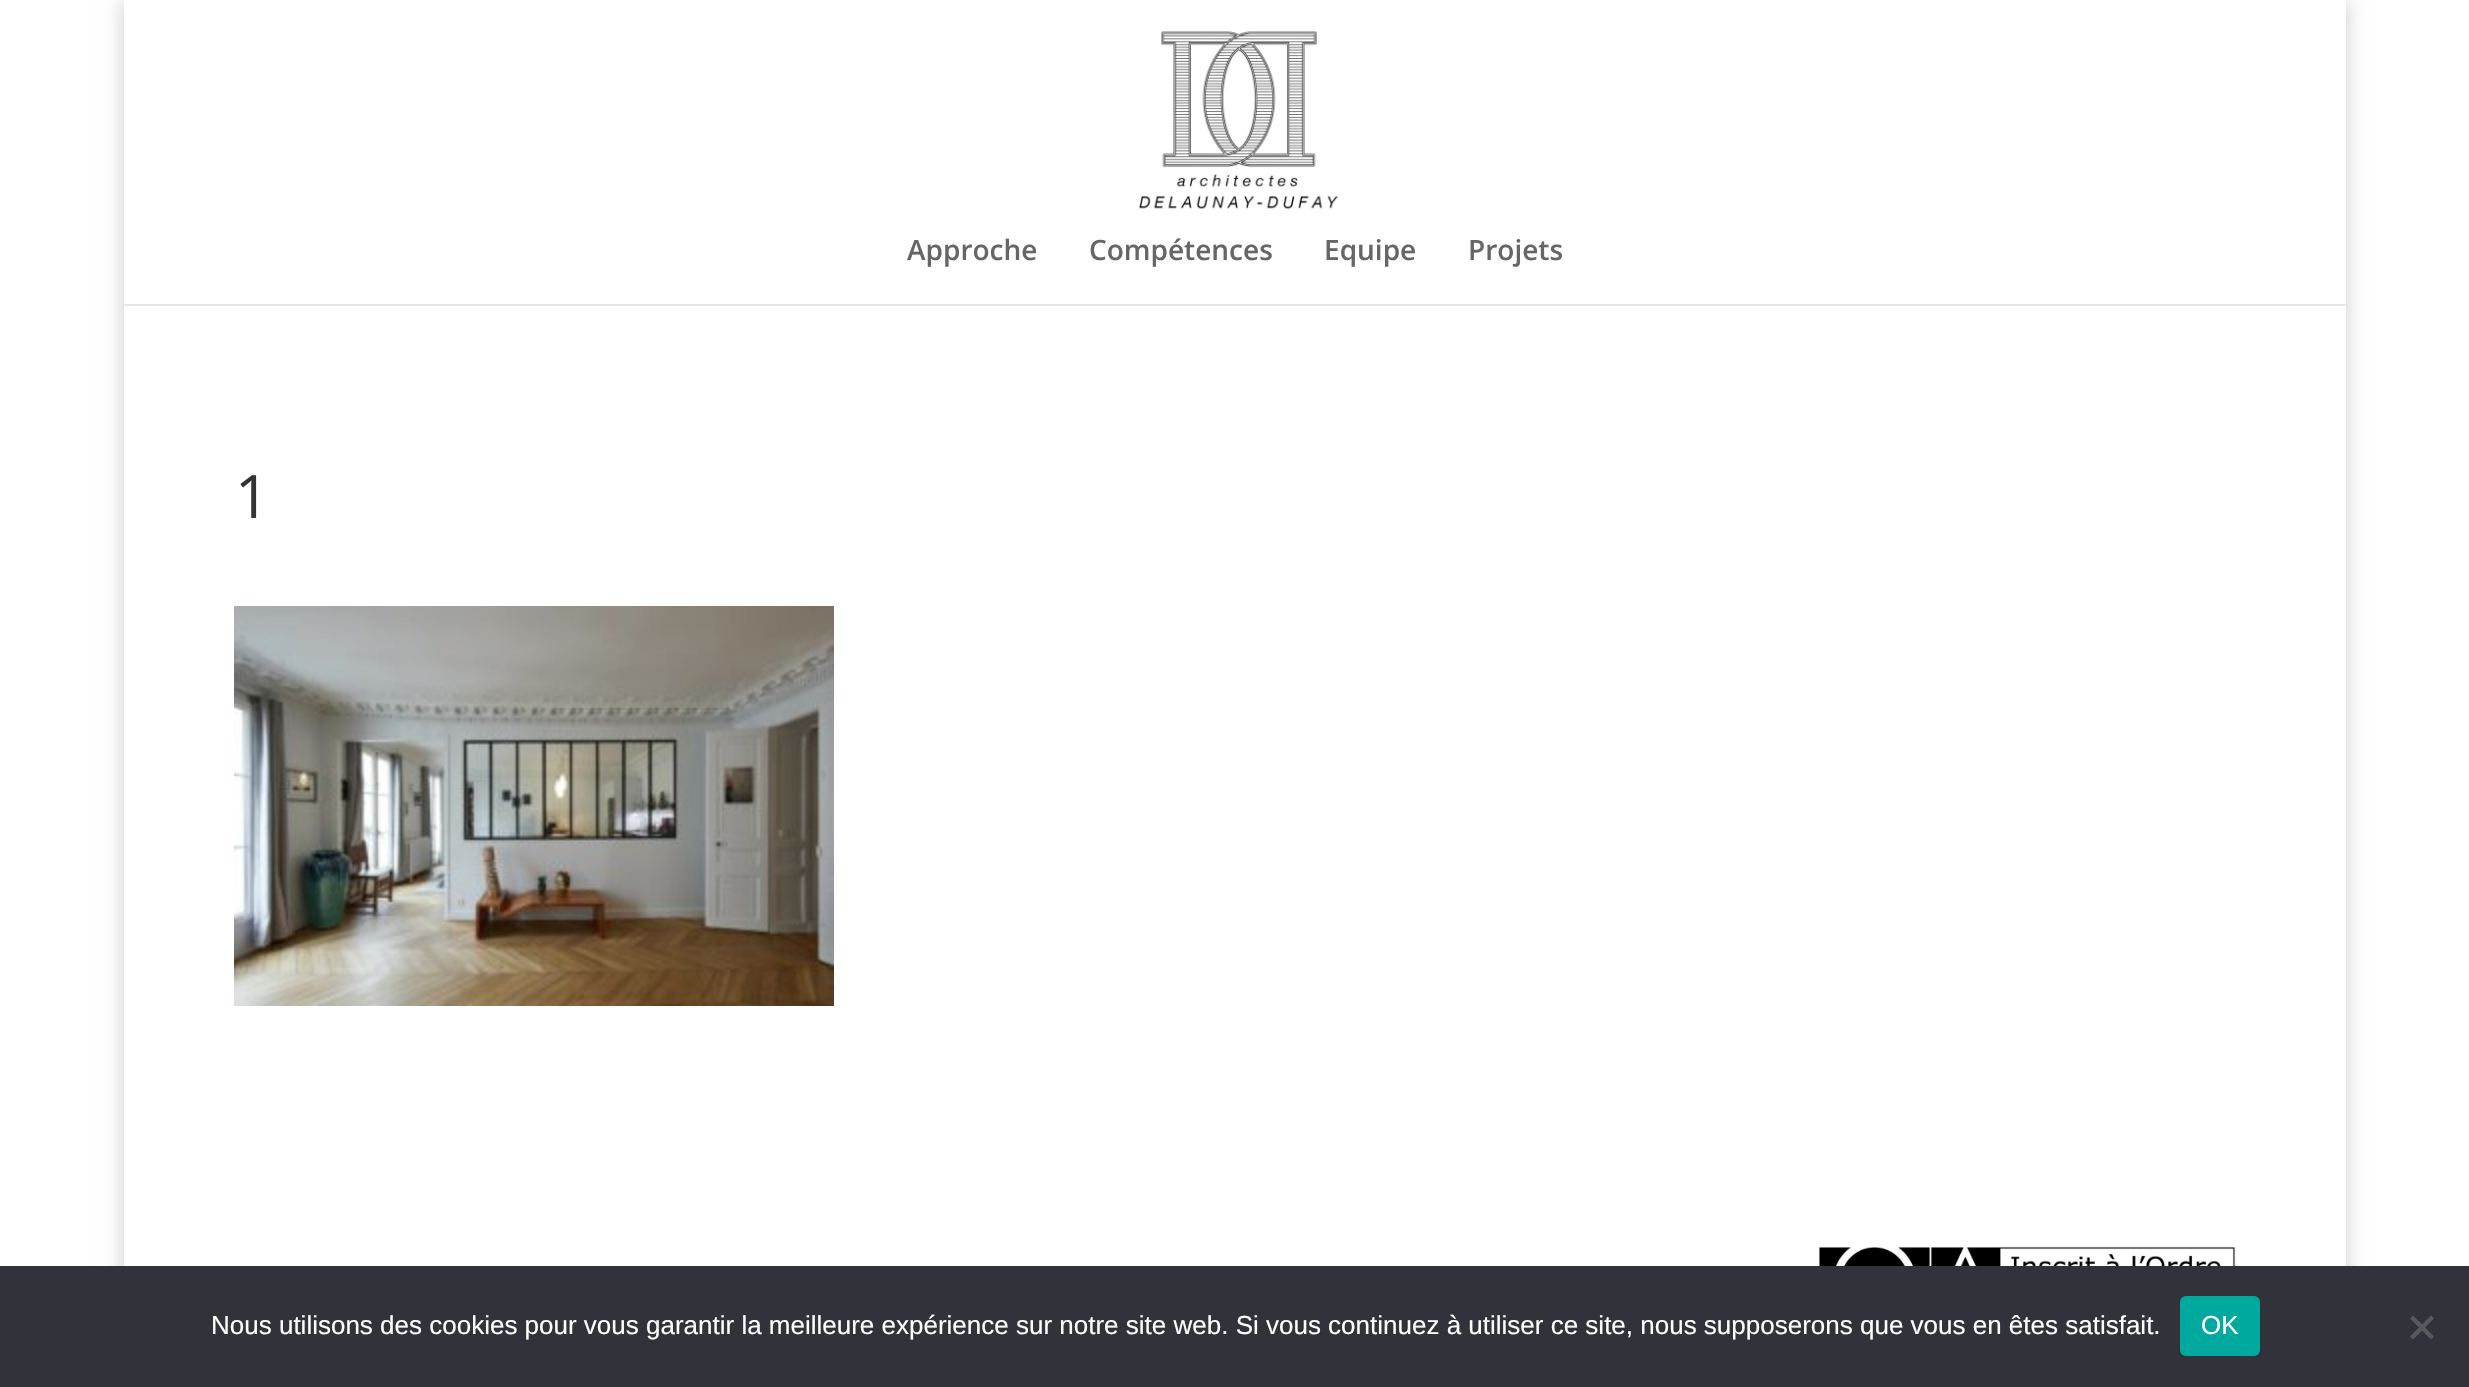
static SkFont makeFont(const char* family, int weight, float size, bool italic = false) {
  SkFontStyle style(weight, SkFontStyle::kNormal_Width,
    italic ? SkFontStyle::kItalic_Slant : SkFontStyle::kUpright_Slant);
  SkFont result(fontMgr->matchFamilyStyle(family, style), size);
  result.setSubpixel(true);
  return result;
}

static void text(SkCanvas* c, const char* s, float x, float y, const SkFont& font, SkColor color) {
  SkPaint ink(SkColor4f::FromColor(color));
  ink.setAntiAlias(true);
  c->drawString(s, x, y, font, ink);
}

static void box(SkCanvas* c, float l, float t, float r, float b, SkColor color) {
  SkPaint ink(SkColor4f::FromColor(color));
  ink.setAntiAlias(true);
  c->drawRect(SkRect::MakeLTRB(l, t, r, b), ink);
}

static void roundBox(SkCanvas* c, float l, float t, float r, float b, float radius, SkColor color) {
  SkPaint ink(SkColor4f::FromColor(color));
  ink.setAntiAlias(true);
  c->drawRoundRect(SkRect::MakeLTRB(l, t, r, b), radius, radius, ink);
}

static void picture(SkCanvas* c, const char* path, float l, float t, float r, float b) {
  auto image = SkImages::DeferredFromEncodedData(SkData::MakeFromFileName(path));
  c->drawImageRect(image, SkRect::MakeLTRB(l, t, r, b), SkSamplingOptions());
}

void draw(SkCanvas* c) {
  SkPaint paint;
  paint.setAntiAlias(true);
  c->clear(0xffffffff);
  c->save();
  c->clipPath(SkPathBuilder(SkPathFillType::kEvenOdd).moveTo(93, 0).lineTo(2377, 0).lineTo(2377, 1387).lineTo(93, 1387).close().moveTo(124, 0).lineTo(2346, 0).lineTo(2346, 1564).lineTo(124, 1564).close().detach(), true);
  paint.setColor(0x33000000);
  paint.setMaskFilter(SkMaskFilter::MakeBlur(kNormal_SkBlurStyle, 10));
  c->drawRect(SkRect::MakeLTRB(124, 0, 2346, 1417), paint);
  paint.setMaskFilter(nullptr);
  c->restore();
  box(c, 124, 304, 2346, 306, 0xffe6e6e6);
  picture(c, "img_01.png", 1139, 31, 1338, 210);
  SkFont face1 = makeFont("Open Sans", 600, 28);
  text(c, "Approche", 907, 260, face1, 0xff666666);
  text(c, "Compétences", 1089, 260, face1, 0xff666666);
  text(c, "Equipe", 1324, 260, face1, 0xff666666);
  text(c, "Projets", 1468, 260, face1, 0xff666666);
  SkFont face2 = makeFont("Open Sans", 400, 60);
  text(c, "1", 235, 518, face2, 0xff333333);
  picture(c, "img_02.png", 234, 606, 834, 1006);
  picture(c, "img_03.png", 1818, 1246, 2236, 1266);
  box(c, 0, 1266, 2469, 1387, 0xff32323a);
  SkFont face3 = makeFont("Liberation Sans", 400, 26);
  text(c, "Nous utilisons des cookies pour vous garantir la meilleure expérience sur notre site web. Si vous continuez à utiliser ce site, nous supposerons que vous en êtes satisfait.", 211, 1334, face3, 0xffffffff);
  roundBox(c, 2180, 1296, 2260, 1356, 6, 0xff00a99d);
  text(c, "OK", 2201, 1334, face3, 0xffffffff);
  paint.setColor(0xff59595d);
  c->drawPath(SkPathBuilder().moveTo(2431, 1315.5f).lineTo(2434, 1318.5f).lineTo(2413, 1339.5f).lineTo(2410, 1336.5f).close().detach(), paint);
  c->drawPath(SkPathBuilder().moveTo(2410, 1318.5f).lineTo(2413, 1315.5f).lineTo(2434, 1336.5f).lineTo(2431, 1339.5f).close().detach(), paint);
}
